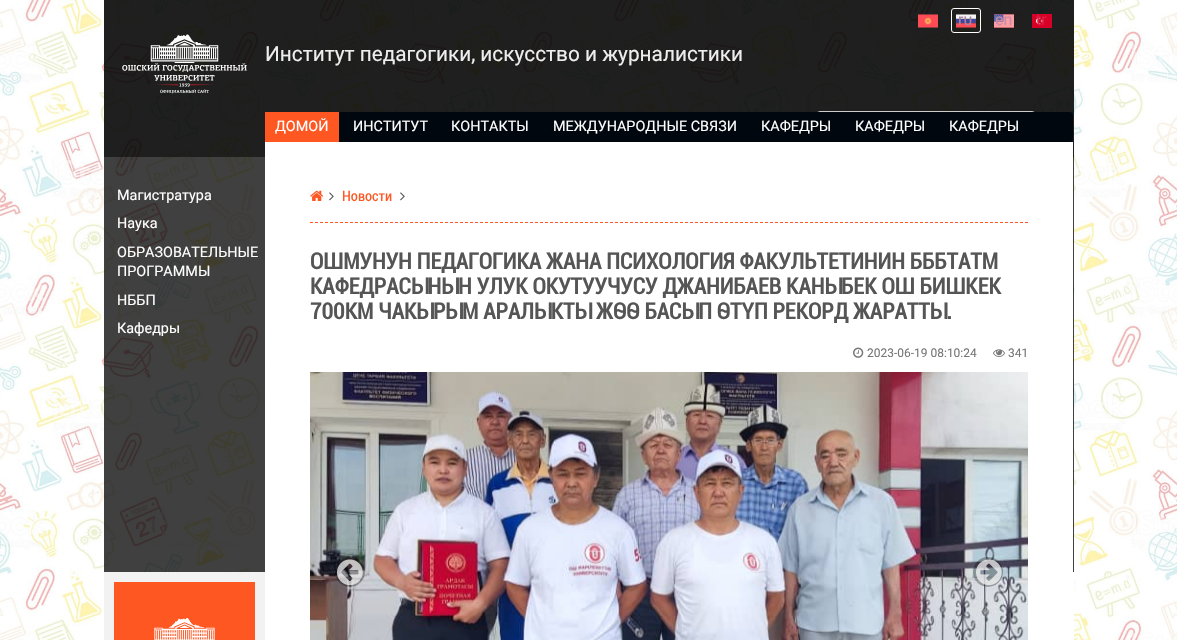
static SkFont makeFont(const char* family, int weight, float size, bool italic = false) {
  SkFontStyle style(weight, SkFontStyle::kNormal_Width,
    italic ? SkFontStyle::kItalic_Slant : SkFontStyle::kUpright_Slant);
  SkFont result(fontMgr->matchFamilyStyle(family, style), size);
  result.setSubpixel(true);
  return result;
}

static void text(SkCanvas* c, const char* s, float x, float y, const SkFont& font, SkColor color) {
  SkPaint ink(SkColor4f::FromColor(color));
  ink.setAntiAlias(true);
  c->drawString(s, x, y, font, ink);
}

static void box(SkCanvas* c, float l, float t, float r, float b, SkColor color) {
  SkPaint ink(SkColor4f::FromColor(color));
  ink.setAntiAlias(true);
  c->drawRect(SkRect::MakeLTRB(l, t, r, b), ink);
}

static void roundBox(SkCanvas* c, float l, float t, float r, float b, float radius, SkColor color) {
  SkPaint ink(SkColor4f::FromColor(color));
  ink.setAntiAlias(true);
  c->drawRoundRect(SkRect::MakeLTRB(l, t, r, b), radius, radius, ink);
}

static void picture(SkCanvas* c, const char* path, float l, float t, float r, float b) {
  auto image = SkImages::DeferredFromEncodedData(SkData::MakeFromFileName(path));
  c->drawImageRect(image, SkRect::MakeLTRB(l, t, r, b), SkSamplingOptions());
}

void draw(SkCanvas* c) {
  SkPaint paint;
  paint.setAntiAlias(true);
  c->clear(0xffffffff);
  picture(c, "img_01.png", 0, 0, 1177, 640);
  box(c, 104, 0, 1074, 157, 0xe0000000);
  picture(c, "img_02.png", 918, 14, 938, 28);
  paint.setStyle(SkPaint::kStroke_Style);
  paint.setStrokeWidth(1);
  paint.setColor(0xffffffff);
  c->drawRoundRect(SkRect::MakeLTRB(951.5f, 8.5f, 980.5f, 32.5f), 2.5f, 2.5f, paint);
  picture(c, "img_03.png", 956, 14, 976, 28);
  SkFont face1 = makeFont("Roboto", 400, 16);
  text(c, "ru", 958, 25, face1, 0xffab83a4);
  picture(c, "img_04.png", 994, 14, 1014, 28);
  text(c, "en", 995, 25, face1, 0xffc88ca6);
  picture(c, "img_05.png", 1032, 14, 1052, 28);
  text(c, "tr", 1036, 25, face1, 0xffdb1f41);
  picture(c, "img_06.png", 122, 34, 247, 94);
  SkFont face2 = makeFont("Roboto", 400, 20.8f);
  text(c, "Институт педагогики, искусство и журналистики", 265, 61, face2, 0xffeeeeee);
  paint.setColor(0xffcccccc);
  c->drawRoundRect(SkRect::MakeLTRB(816.5f, 111.5f, 1035.5f, 140.5f), 3.5f, 3.5f, paint);
  box(c, 104, 157, 1074, 572, 0xbf000000);
  box(c, 1069, 112, 1073, 142, 0xff051a37);
  roundBox(c, 265, 112, 1073, 142, 4, 0xff01070e);
  box(c, 265, 112, 339, 142, 0xffff5722);
  SkFont face3 = makeFont("Roboto", 400, 14.4f);
  text(c, "ДОМОЙ", 275, 131, face3, 0xffffffff);
  text(c, "ИНСТИТУТ", 353, 131, face3, 0xffffffff);
  text(c, "КОНТАКТЫ", 451, 131, face3, 0xffffffff);
  text(c, "МЕЖДУНАРОДНЫЕ СВЯЗИ", 553, 131, face3, 0xffffffff);
  text(c, "КАФЕДРЫ", 761, 131, face3, 0xffffffff);
  text(c, "КАФЕДРЫ", 855, 131, face3, 0xffffffff);
  text(c, "КАФЕДРЫ", 949, 131, face3, 0xffffffff);
  text(c, "Магистратура", 117, 200, face3, 0xffffffff);
  text(c, "Наука", 117, 228, face3, 0xffffffff);
  text(c, "ОБРАЗОВАТЕЛЬНЫЕ", 117, 257, face3, 0xffffffff);
  text(c, "ПРОГРАММЫ", 117, 276, face3, 0xffffffff);
  text(c, "НББП", 117, 305, face3, 0xffffffff);
  text(c, "Кафедры", 117, 333, face3, 0xffffffff);
  box(c, 1073, 572, 1074, 640, 0xffffffff);
  box(c, 265, 142, 1073, 640, 0xffffffff);
  paint.setColor(0xffff5722);
  paint.setPathEffect(SkDashPathEffect::Make({{3, 2}}, 0));
  c->drawPath(SkPathBuilder().moveTo(310, 222.5f).lineTo(1028, 222.5f).detach(), paint);
  paint.setPathEffect(nullptr);
  picture(c, "img_07.png", 310, 190, 324, 201);
  picture(c, "img_08.png", 329, 192, 334, 201);
  SkFont face4 = makeFont("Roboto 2", 400, 14.4f);
  text(c, "Новости", 342, 201, face4, 0xffff5722);
  picture(c, "img_08.png", 400, 192, 405, 201);
  SkFont face5 = makeFont("Roboto", 700, 22.4f);
  text(c, "ОШМУНУН ПЕДАГОГИКА ЖАНА ПСИХОЛОГИЯ ФАКУЛЬТЕТИНИН БББТАТМ", 310, 269, face5, 0xff555555);
  text(c, "КАФЕДРАСЫНЫН УЛУК ОКУТУУЧУСУ ДЖАНИБАЕВ КАНЫБЕК ОШ БИШКЕК", 310, 294, face5, 0xff555555);
  text(c, "700КМ ЧАКЫРЫМ АРАЛЫКТЫ ЖӨӨ БАСЫП ӨТҮП РЕКОРД ЖАРАТТЫ.", 310, 319, face5, 0xff555555);
  picture(c, "img_09.png", 853, 347, 864, 358);
  SkFont face6 = makeFont("Roboto", 400, 12);
  text(c, "2023-06-19 08:10:24", 867, 357, face6, 0xff777777);
  picture(c, "img_10.png", 993, 349, 1005, 357);
  text(c, "341", 1008, 357, face6, 0xff777777);
  picture(c, "img_11.png", 310, 372, 1028, 640);
  paint.setStyle(SkPaint::kFill_Style);
  paint.setColor(0x4d000000);
  c->drawCircle(350, 572, 15, paint);
  picture(c, "img_12.png", 337, 559, 363, 586);
  c->drawCircle(988, 572, 15, paint);
  picture(c, "img_13.png", 976, 559, 1002, 586);
  box(c, 104, 572, 265, 640, 0xfff2f2f2);
  box(c, 114, 582, 255, 640, 0xffff5722);
  picture(c, "img_14.png", 154, 618, 215, 640);
}
